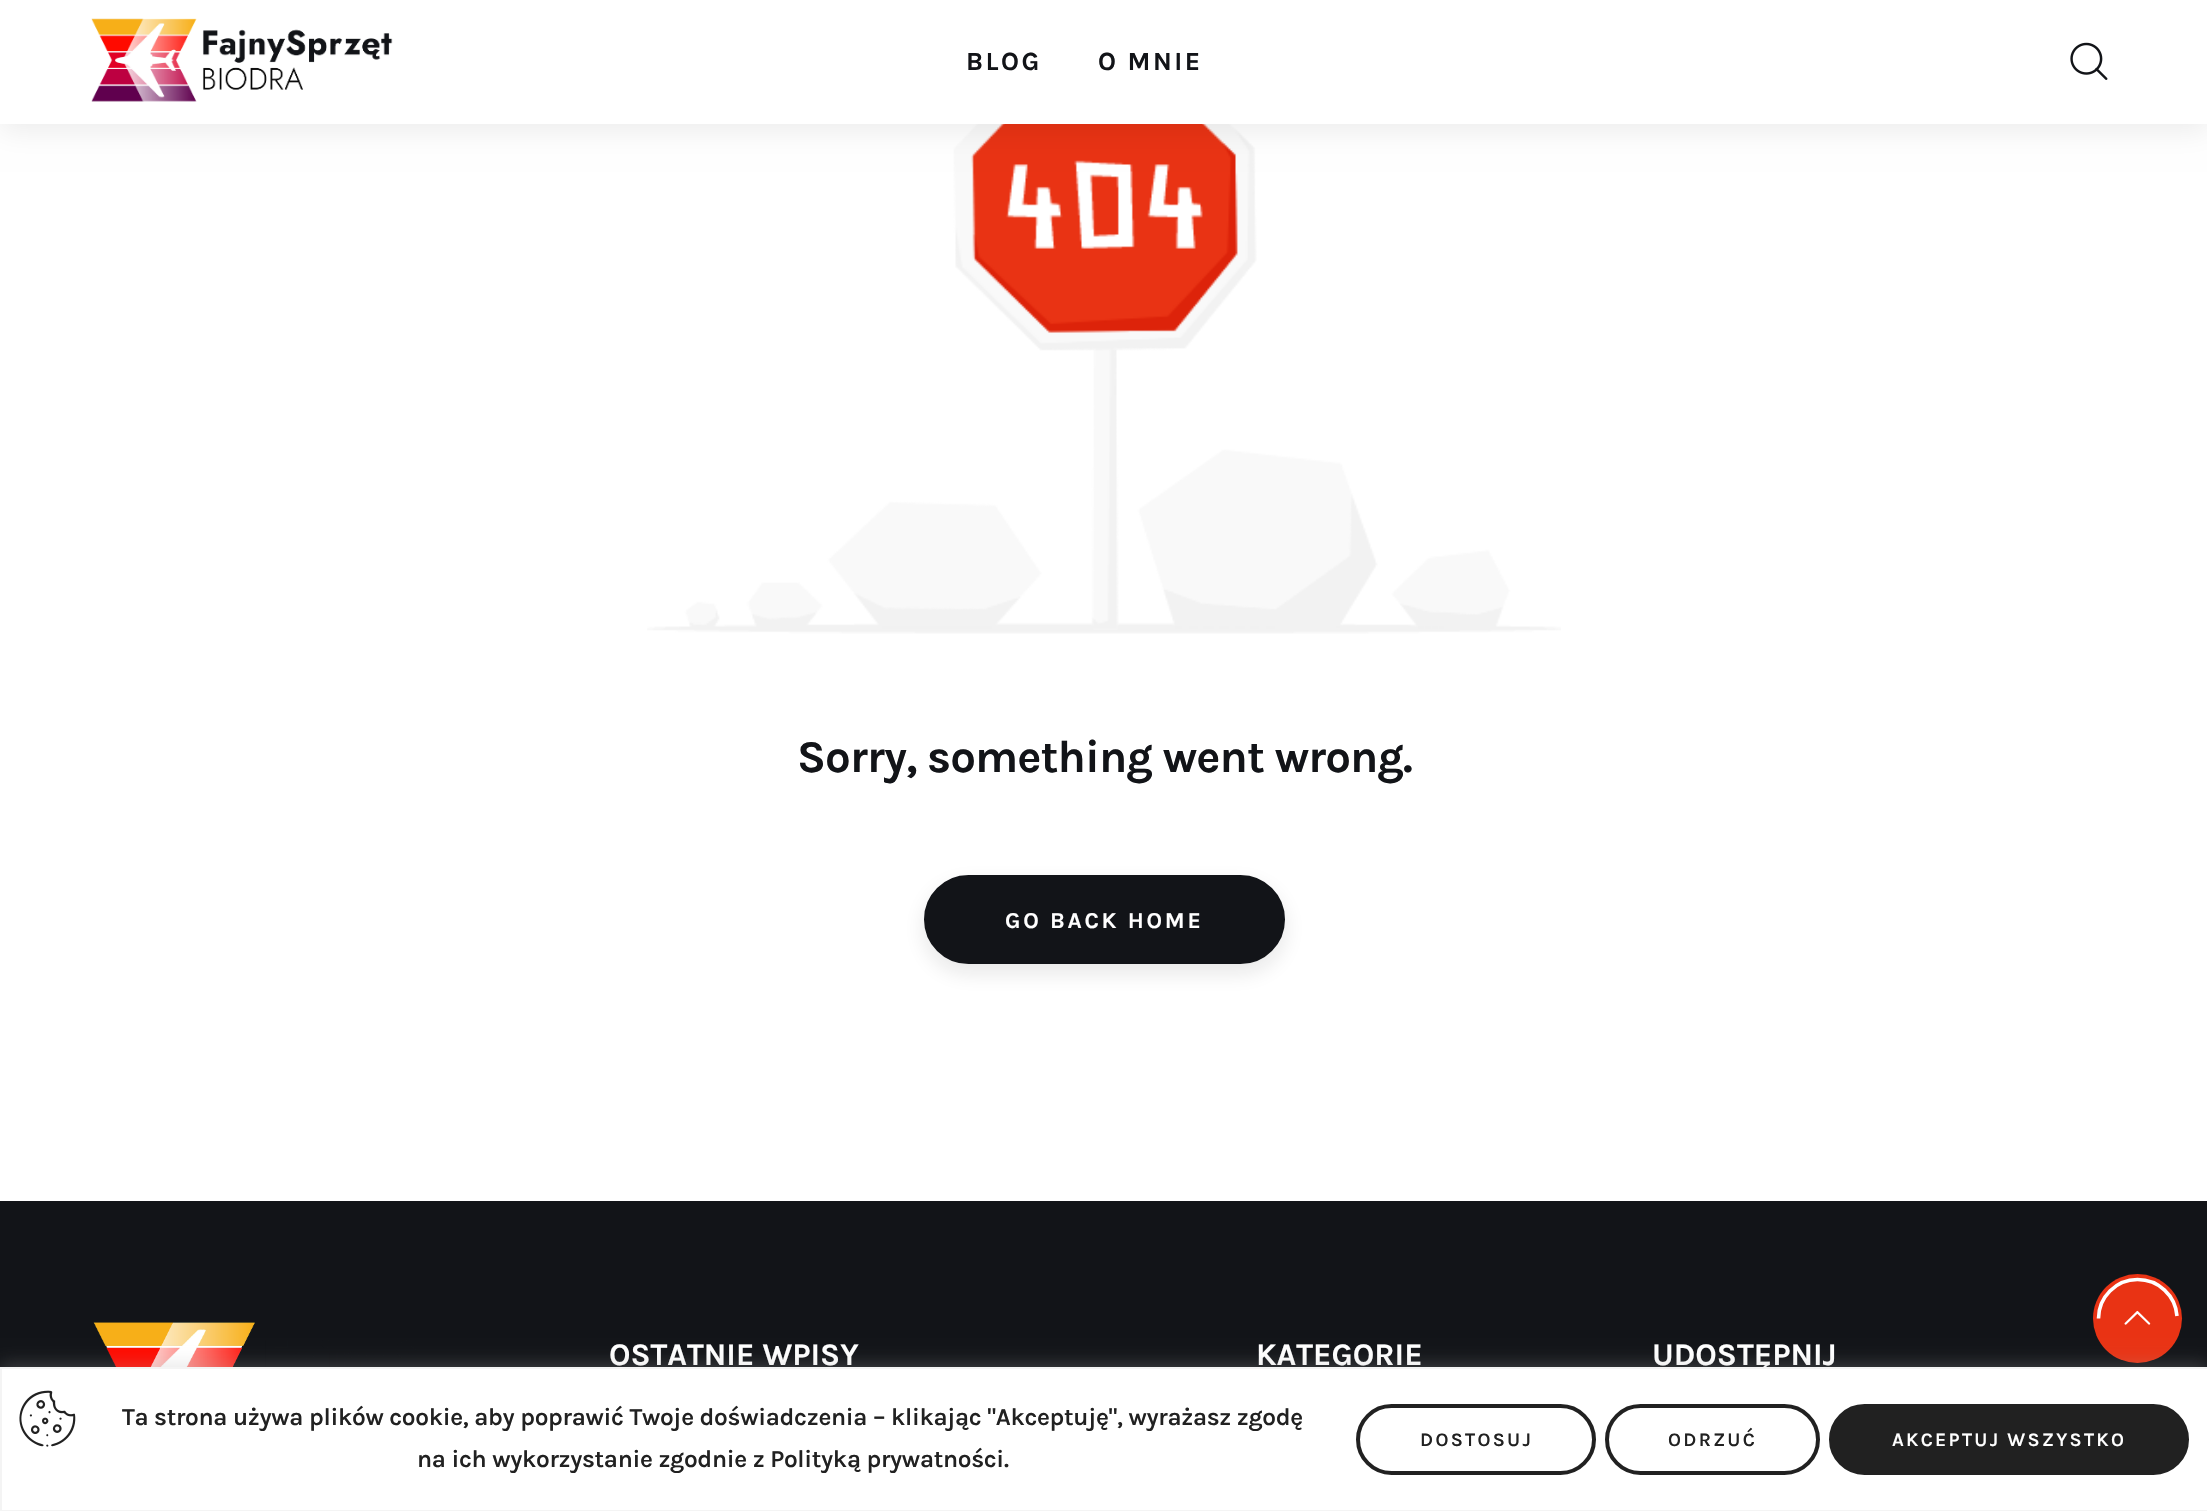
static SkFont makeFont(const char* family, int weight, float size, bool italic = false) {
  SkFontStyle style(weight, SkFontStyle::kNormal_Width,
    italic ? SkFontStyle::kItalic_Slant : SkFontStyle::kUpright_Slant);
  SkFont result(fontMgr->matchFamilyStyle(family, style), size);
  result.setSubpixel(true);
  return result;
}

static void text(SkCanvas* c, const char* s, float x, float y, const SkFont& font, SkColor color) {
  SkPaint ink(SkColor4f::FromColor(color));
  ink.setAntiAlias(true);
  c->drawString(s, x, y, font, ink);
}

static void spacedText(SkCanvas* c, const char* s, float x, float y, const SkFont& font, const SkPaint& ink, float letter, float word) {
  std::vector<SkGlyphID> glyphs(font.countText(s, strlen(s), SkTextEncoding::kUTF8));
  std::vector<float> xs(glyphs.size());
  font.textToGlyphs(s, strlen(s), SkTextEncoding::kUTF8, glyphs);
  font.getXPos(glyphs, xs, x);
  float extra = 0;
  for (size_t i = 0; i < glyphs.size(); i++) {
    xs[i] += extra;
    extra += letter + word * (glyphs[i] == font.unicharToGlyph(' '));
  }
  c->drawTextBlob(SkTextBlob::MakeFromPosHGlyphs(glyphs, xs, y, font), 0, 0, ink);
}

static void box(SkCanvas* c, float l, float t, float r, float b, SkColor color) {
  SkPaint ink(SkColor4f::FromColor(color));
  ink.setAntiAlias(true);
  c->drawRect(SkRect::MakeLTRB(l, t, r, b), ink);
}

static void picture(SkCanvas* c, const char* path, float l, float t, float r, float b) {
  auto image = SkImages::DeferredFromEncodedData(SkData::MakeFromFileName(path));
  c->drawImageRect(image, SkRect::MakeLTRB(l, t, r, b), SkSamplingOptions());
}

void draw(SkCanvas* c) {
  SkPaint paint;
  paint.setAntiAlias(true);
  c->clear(0xffffffff);
  picture(c, "img_03.png", 647, 124, 1561, 634);
  paint.setColor(0x14000000);
  paint.setMaskFilter(SkMaskFilter::MakeBlur(kNormal_SkBlurStyle, 14));
  c->drawRect(SkRect::MakeLTRB(0, 5, 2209, 130), paint);
  paint.setMaskFilter(nullptr);
  box(c, 0, 0, 2207, 124, 0xffffffff);
  picture(c, "img_01.png", 91, 18, 393, 102);
  SkFont face1 = makeFont("Karla", 700, 26.25f);
  paint.setColor(0xff121418);
  spacedText(c, "BLOG", 966, 70, face1, paint, 2.5f, 0);
  spacedText(c, "O MNIE", 1098, 70, face1, paint, 2.5f, 0);
  picture(c, "img_02.png", 2070, 42, 2108, 80);
  SkFont face2 = makeFont("Karla", 700, 45.5f);
  spacedText(c, "Sorry, something went wrong.", 797, 772, face2, paint, -0.9f, 0);
  paint.setColor(0x1a121418);
  paint.setMaskFilter(SkMaskFilter::MakeBlur(kNormal_SkBlurStyle, 10.5f));
  c->drawRoundRect(SkRect::MakeLTRB(924, 884, 1285, 973), 44.5f, 44.5f, paint);
  paint.setMaskFilter(nullptr);
  paint.setColor(0xff121418);
  c->drawRoundRect(SkRect::MakeLTRB(926, 877, 1283, 962), 42.5f, 42.5f, paint);
  paint.setStyle(SkPaint::kStroke_Style);
  paint.setStrokeWidth(4);
  c->drawRoundRect(SkRect::MakeLTRB(926, 877, 1283, 962), 42.5f, 42.5f, paint);
  SkFont face3 = makeFont("Karla", 700, 22.75f);
  paint.setStyle(SkPaint::kFill_Style);
  paint.setColor(0xffffffff);
  spacedText(c, "GO BACK HOME", 1005, 928, face3, paint, 2.75f, 0);
  box(c, 0, 1201, 2207, 1367, 0xff121418);
  picture(c, "img_04.png", 93, 1322, 419, 1367);
  SkFont face4 = makeFont("Karla", 700, 31.5f);
  text(c, "OSTATNIE WPISY", 609, 1365, face4, 0xffffffff);
  text(c, "KATEGORIE", 1256, 1365, face4, 0xffffffff);
  text(c, "UDOSTĘPNIJ", 1652, 1365, face4, 0xffffffff);
  paint.setColor(0xffe93314);
  c->drawCircle(2137.5f, 1318.5f, 44.5f, paint);
  paint.setStyle(SkPaint::kStroke_Style);
  paint.setStrokeWidth(3.6f);
  paint.setColor(0xffffffff);
  c->drawPath(SkPathBuilder().moveTo(2098.5f, 1318.5f).cubicTo(2098.5f, 1297, 2116, 1279.5f, 2137.5f, 1279.5f).cubicTo(2158.5f, 1279.5f, 2175.5f, 1295.5f, 2177, 1316).detach(), paint);
  picture(c, "img_05.png", 2124, 1310, 2151, 1325);
  paint.setStyle(SkPaint::kFill_Style);
  paint.setColor(0x4dacabab);
  paint.setMaskFilter(SkMaskFilter::MakeBlur(kNormal_SkBlurStyle, 9));
  c->drawRect(SkRect::MakeLTRB(0, 1365, 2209, 1510), paint);
  paint.setMaskFilter(nullptr);
  paint.setColor(0xffffffff);
  c->drawRect(SkRect::MakeLTRB(1, 1368, 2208, 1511), paint);
  paint.setStyle(SkPaint::kStroke_Style);
  paint.setStrokeWidth(2);
  paint.setColor(0xfff4f4f4);
  c->drawRect(SkRect::MakeLTRB(1, 1368, 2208, 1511), paint);
  picture(c, "img_06.png", 19, 1390, 76, 1447);
  SkFont face5 = makeFont("Karla", 600, 24.5f);
  paint.setStyle(SkPaint::kFill_Style);
  paint.setColor(0xff212121);
  spacedText(c, "Ta strona używa plików cookie, aby poprawić Twoje doświadczenia – klikając \"Akceptuję\", wyrażasz zgodę", 122, 1425, face5, paint, -0.3f, 0);
  spacedText(c, "na ich wykorzystanie zgodnie z Polityką prywatności.", 417, 1467, face5, paint, -0.3f, 0);
  paint.setStyle(SkPaint::kStroke_Style);
  paint.setStrokeWidth(4);
  c->drawRoundRect(SkRect::MakeLTRB(1358, 1406, 1594, 1473), 33.5f, 33.5f, paint);
  SkFont face6 = makeFont("Karla", 600, 19.25f);
  paint.setStyle(SkPaint::kFill_Style);
  spacedText(c, "DOSTOSUJ", 1420, 1446, face6, paint, 2.3f, 0);
  paint.setStyle(SkPaint::kStroke_Style);
  c->drawRoundRect(SkRect::MakeLTRB(1607, 1406, 1818, 1473), 33.5f, 33.5f, paint);
  paint.setStyle(SkPaint::kFill_Style);
  spacedText(c, "ODRZUĆ", 1668, 1446, face6, paint, 2.3f, 0);
  c->drawRoundRect(SkRect::MakeLTRB(1831, 1406, 2187, 1473), 33.5f, 33.5f, paint);
  paint.setStyle(SkPaint::kStroke_Style);
  c->drawRoundRect(SkRect::MakeLTRB(1831, 1406, 2187, 1473), 33.5f, 33.5f, paint);
  paint.setStyle(SkPaint::kFill_Style);
  paint.setColor(0xffffffff);
  spacedText(c, "AKCEPTUJ WSZYSTKO", 1892, 1446, face6, paint, 2.3f, 0);
}
